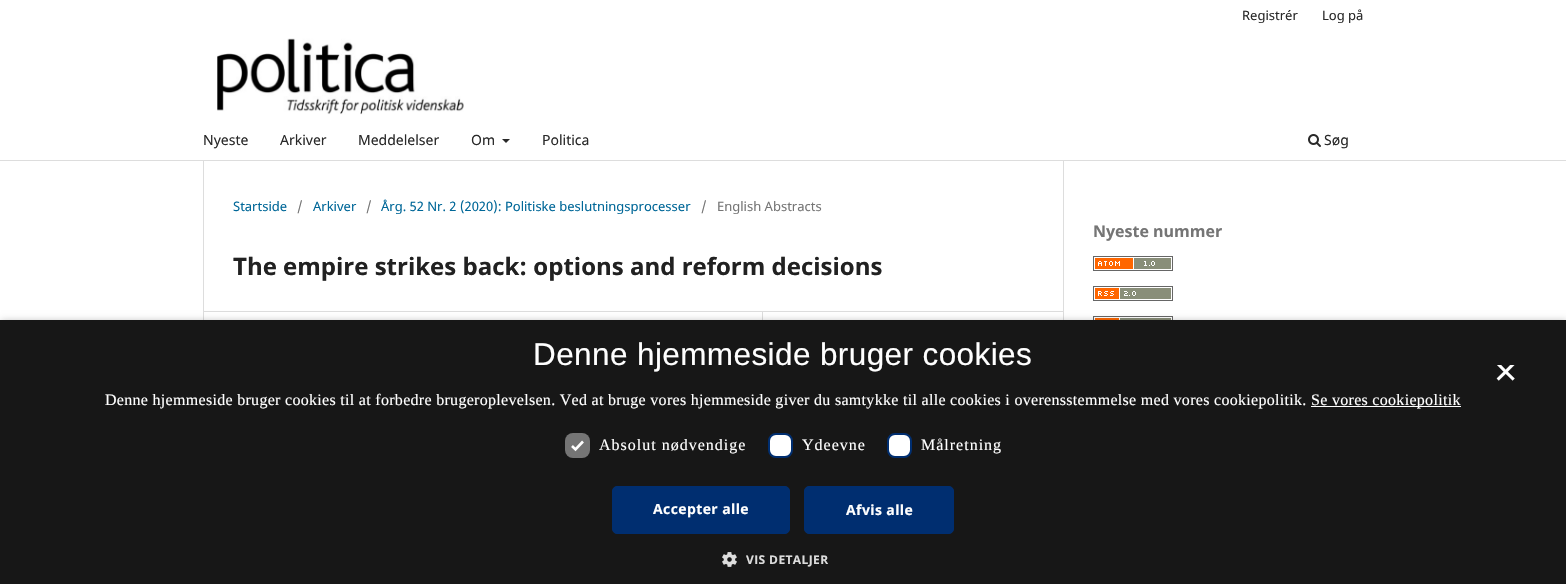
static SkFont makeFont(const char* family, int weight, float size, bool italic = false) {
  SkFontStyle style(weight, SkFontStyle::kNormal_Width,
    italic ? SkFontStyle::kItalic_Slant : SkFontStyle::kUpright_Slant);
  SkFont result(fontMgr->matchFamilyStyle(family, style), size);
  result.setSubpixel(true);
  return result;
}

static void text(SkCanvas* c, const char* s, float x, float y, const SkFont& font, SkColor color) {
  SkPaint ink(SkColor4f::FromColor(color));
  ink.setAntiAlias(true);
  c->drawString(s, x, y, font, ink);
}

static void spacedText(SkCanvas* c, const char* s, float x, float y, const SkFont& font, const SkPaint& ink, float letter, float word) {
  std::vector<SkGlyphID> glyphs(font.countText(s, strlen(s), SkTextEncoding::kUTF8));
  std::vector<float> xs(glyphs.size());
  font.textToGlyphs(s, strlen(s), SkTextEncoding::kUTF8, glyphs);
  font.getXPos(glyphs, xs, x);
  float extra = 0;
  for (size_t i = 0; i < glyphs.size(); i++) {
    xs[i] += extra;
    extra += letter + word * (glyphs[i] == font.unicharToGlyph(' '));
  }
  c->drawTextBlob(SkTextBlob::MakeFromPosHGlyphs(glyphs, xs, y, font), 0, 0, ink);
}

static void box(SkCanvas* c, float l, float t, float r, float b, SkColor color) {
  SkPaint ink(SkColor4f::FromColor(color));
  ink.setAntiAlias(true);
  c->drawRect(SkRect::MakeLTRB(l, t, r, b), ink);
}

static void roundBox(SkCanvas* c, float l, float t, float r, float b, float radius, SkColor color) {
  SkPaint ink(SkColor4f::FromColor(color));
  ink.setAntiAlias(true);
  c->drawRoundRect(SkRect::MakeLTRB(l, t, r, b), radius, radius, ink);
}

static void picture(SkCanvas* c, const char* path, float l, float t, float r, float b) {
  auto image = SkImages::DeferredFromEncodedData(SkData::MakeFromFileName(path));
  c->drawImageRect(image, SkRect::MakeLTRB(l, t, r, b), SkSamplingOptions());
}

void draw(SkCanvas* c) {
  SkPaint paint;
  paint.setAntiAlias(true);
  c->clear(0xffffffff);
  box(c, 0, 160, 1566, 161, 0xffdddddd);
  SkFont face1 = makeFont("Noto Sans", 400, 13);
  text(c, "Registrér", 1242, 20, face1, 0xff292929);
  text(c, "Log på", 1322, 20, face1, 0xff292929);
  SkFont face2 = makeFont("Noto Sans", 400, 14);
  text(c, "Nyeste", 203, 145, face2, 0xff292929);
  text(c, "Arkiver", 280, 145, face2, 0xff292929);
  text(c, "Meddelelser", 358, 145, face2, 0xff292929);
  text(c, "Om", 471, 145, face2, 0xff292929);
  paint.setColor(0xff292929);
  c->drawPath(SkPathBuilder().moveTo(502, 139).lineTo(510, 139).lineTo(506, 143).close().detach(), paint);
  text(c, "Politica", 542, 145, face2, 0xff292929);
  picture(c, "img_01.png", 1308, 134, 1321, 147);
  text(c, "Søg", 1324, 145, face2, 0xff292929);
  picture(c, "img_02.png", 217, 38, 464, 115);
  box(c, 203, 311, 1063, 312, 0xffdddddd);
  box(c, 203, 161, 204, 320, 0xffdddddd);
  text(c, "Startside", 233, 211, face1, 0xff006798);
  text(c, "/", 297, 211, face1, 0xff757575);
  text(c, "Arkiver", 313, 211, face1, 0xff006798);
  text(c, "/", 366, 211, face1, 0xff757575);
  text(c, "Årg. 52 Nr. 2 (2020): Politiske beslutningsprocesser", 381, 211, face1, 0xff006798);
  text(c, "/", 701, 211, face1, 0xff757575);
  text(c, "English Abstracts", 717, 211, face1, 0xff757575);
  SkFont face3 = makeFont("Noto Sans", 700, 24);
  text(c, "The empire strikes back: options and reform decisions", 233, 275, face3, 0xff212121);
  box(c, 762, 312, 763, 320, 0xffdddddd);
  box(c, 1063, 161, 1064, 320, 0xffdddddd);
  SkFont face4 = makeFont("Noto Sans", 700, 16);
  text(c, "Nyeste nummer", 1093, 237, face4, 0xff757575);
  picture(c, "img_03.png", 1093, 256, 1173, 271);
  picture(c, "img_04.png", 1093, 286, 1173, 301);
  picture(c, "img_05.png", 1093, 316, 1173, 320);
  paint.setColor(0x59000000);
  paint.setMaskFilter(SkMaskFilter::MakeBlur(kNormal_SkBlurStyle, 4));
  c->drawRect(SkRect::MakeLTRB(1, 322, 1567, 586), paint);
  paint.setMaskFilter(nullptr);
  box(c, 0, 320, 1566, 584, 0xff171717);
  SkFont face5 = makeFont("Liberation Sans", 400, 31.5f);
  paint.setColor(0xffffffff);
  spacedText(c, "Denne hjemmeside bruger cookies", 533, 365, face5, paint, 0.4f, 0);
  c->save();
  c->clipRect(SkRect::MakeLTRB(1491, 365, 1521, 395));
  SkFont face6 = makeFont("Liberation Sans", 400, 40);
  text(c, "×", 1494, 385, face6, 0xffffffff);
  c->restore();
  SkFont face7 = makeFont("Liberation Serif", 400, 16);
  spacedText(c, "Denne hjemmeside bruger cookies til at forbedre brugeroplevelsen. Ved at bruge vores hjemmeside giver du samtykke til alle cookies i overensstemmelse med vores cookiepolitik.", 105, 405, face7, paint, 0.3f, 0);
  box(c, 1311, 406, 1461, 407, 0xffffffff);
  spacedText(c, "Se vores cookiepolitik", 1311, 405, face7, paint, 0.3f, 0);
  roundBox(c, 565, 433, 590, 458, 8, 0xff757575);
  paint.setStyle(SkPaint::kStroke_Style);
  paint.setStrokeWidth(2.6f);
  c->drawPath(SkPathBuilder().moveTo(572, 446).lineTo(575.5f, 449.5f).lineTo(583, 441.5f).detach(), paint);
  paint.setStyle(SkPaint::kFill_Style);
  spacedText(c, "Absolut nødvendige", 599, 450, face7, paint, 1, 0);
  c->drawRoundRect(SkRect::MakeLTRB(769, 434, 792, 457), 7, 7, paint);
  paint.setStyle(SkPaint::kStroke_Style);
  paint.setStrokeWidth(2);
  paint.setColor(0xff002e70);
  c->drawRoundRect(SkRect::MakeLTRB(769, 434, 792, 457), 7, 7, paint);
  paint.setStyle(SkPaint::kFill_Style);
  paint.setColor(0xffffffff);
  spacedText(c, "Ydeevne", 802, 450, face7, paint, 1, 0);
  c->drawRoundRect(SkRect::MakeLTRB(888, 434, 911, 457), 7, 7, paint);
  paint.setStyle(SkPaint::kStroke_Style);
  paint.setColor(0xff002e70);
  c->drawRoundRect(SkRect::MakeLTRB(888, 434, 911, 457), 7, 7, paint);
  paint.setStyle(SkPaint::kFill_Style);
  paint.setColor(0xffffffff);
  spacedText(c, "Målretning", 921, 450, face7, paint, 1, 0);
  paint.setColor(0xff002e70);
  c->drawRoundRect(SkRect::MakeLTRB(612.5f, 486.5f, 789.5f, 533.5f), 4.5f, 4.5f, paint);
  paint.setStyle(SkPaint::kStroke_Style);
  paint.setStrokeWidth(1);
  c->drawRoundRect(SkRect::MakeLTRB(612.5f, 486.5f, 789.5f, 533.5f), 4.5f, 4.5f, paint);
  SkFont face8 = makeFont("Open Sans", 700, 14);
  paint.setStyle(SkPaint::kFill_Style);
  paint.setColor(0xffffffff);
  spacedText(c, "Accepter alle", 653, 514, face8, paint, 0.4f, 0);
  paint.setColor(0xff002e70);
  c->drawRoundRect(SkRect::MakeLTRB(804.5f, 486.5f, 953.5f, 533.5f), 4.5f, 4.5f, paint);
  paint.setStyle(SkPaint::kStroke_Style);
  c->drawRoundRect(SkRect::MakeLTRB(804.5f, 486.5f, 953.5f, 533.5f), 4.5f, 4.5f, paint);
  paint.setStyle(SkPaint::kFill_Style);
  paint.setColor(0xffffffff);
  spacedText(c, "Afvis alle", 846, 515, face8, paint, 0.4f, 0);
  picture(c, "img_06.png", 722, 552, 737, 567);
  SkFont face9 = makeFont("Open Sans", 700, 12);
  paint.setColor(0xffdcdcdc);
  spacedText(c, "VIS DETALJER", 746, 564, face9, paint, 0.4f, 0);
}
